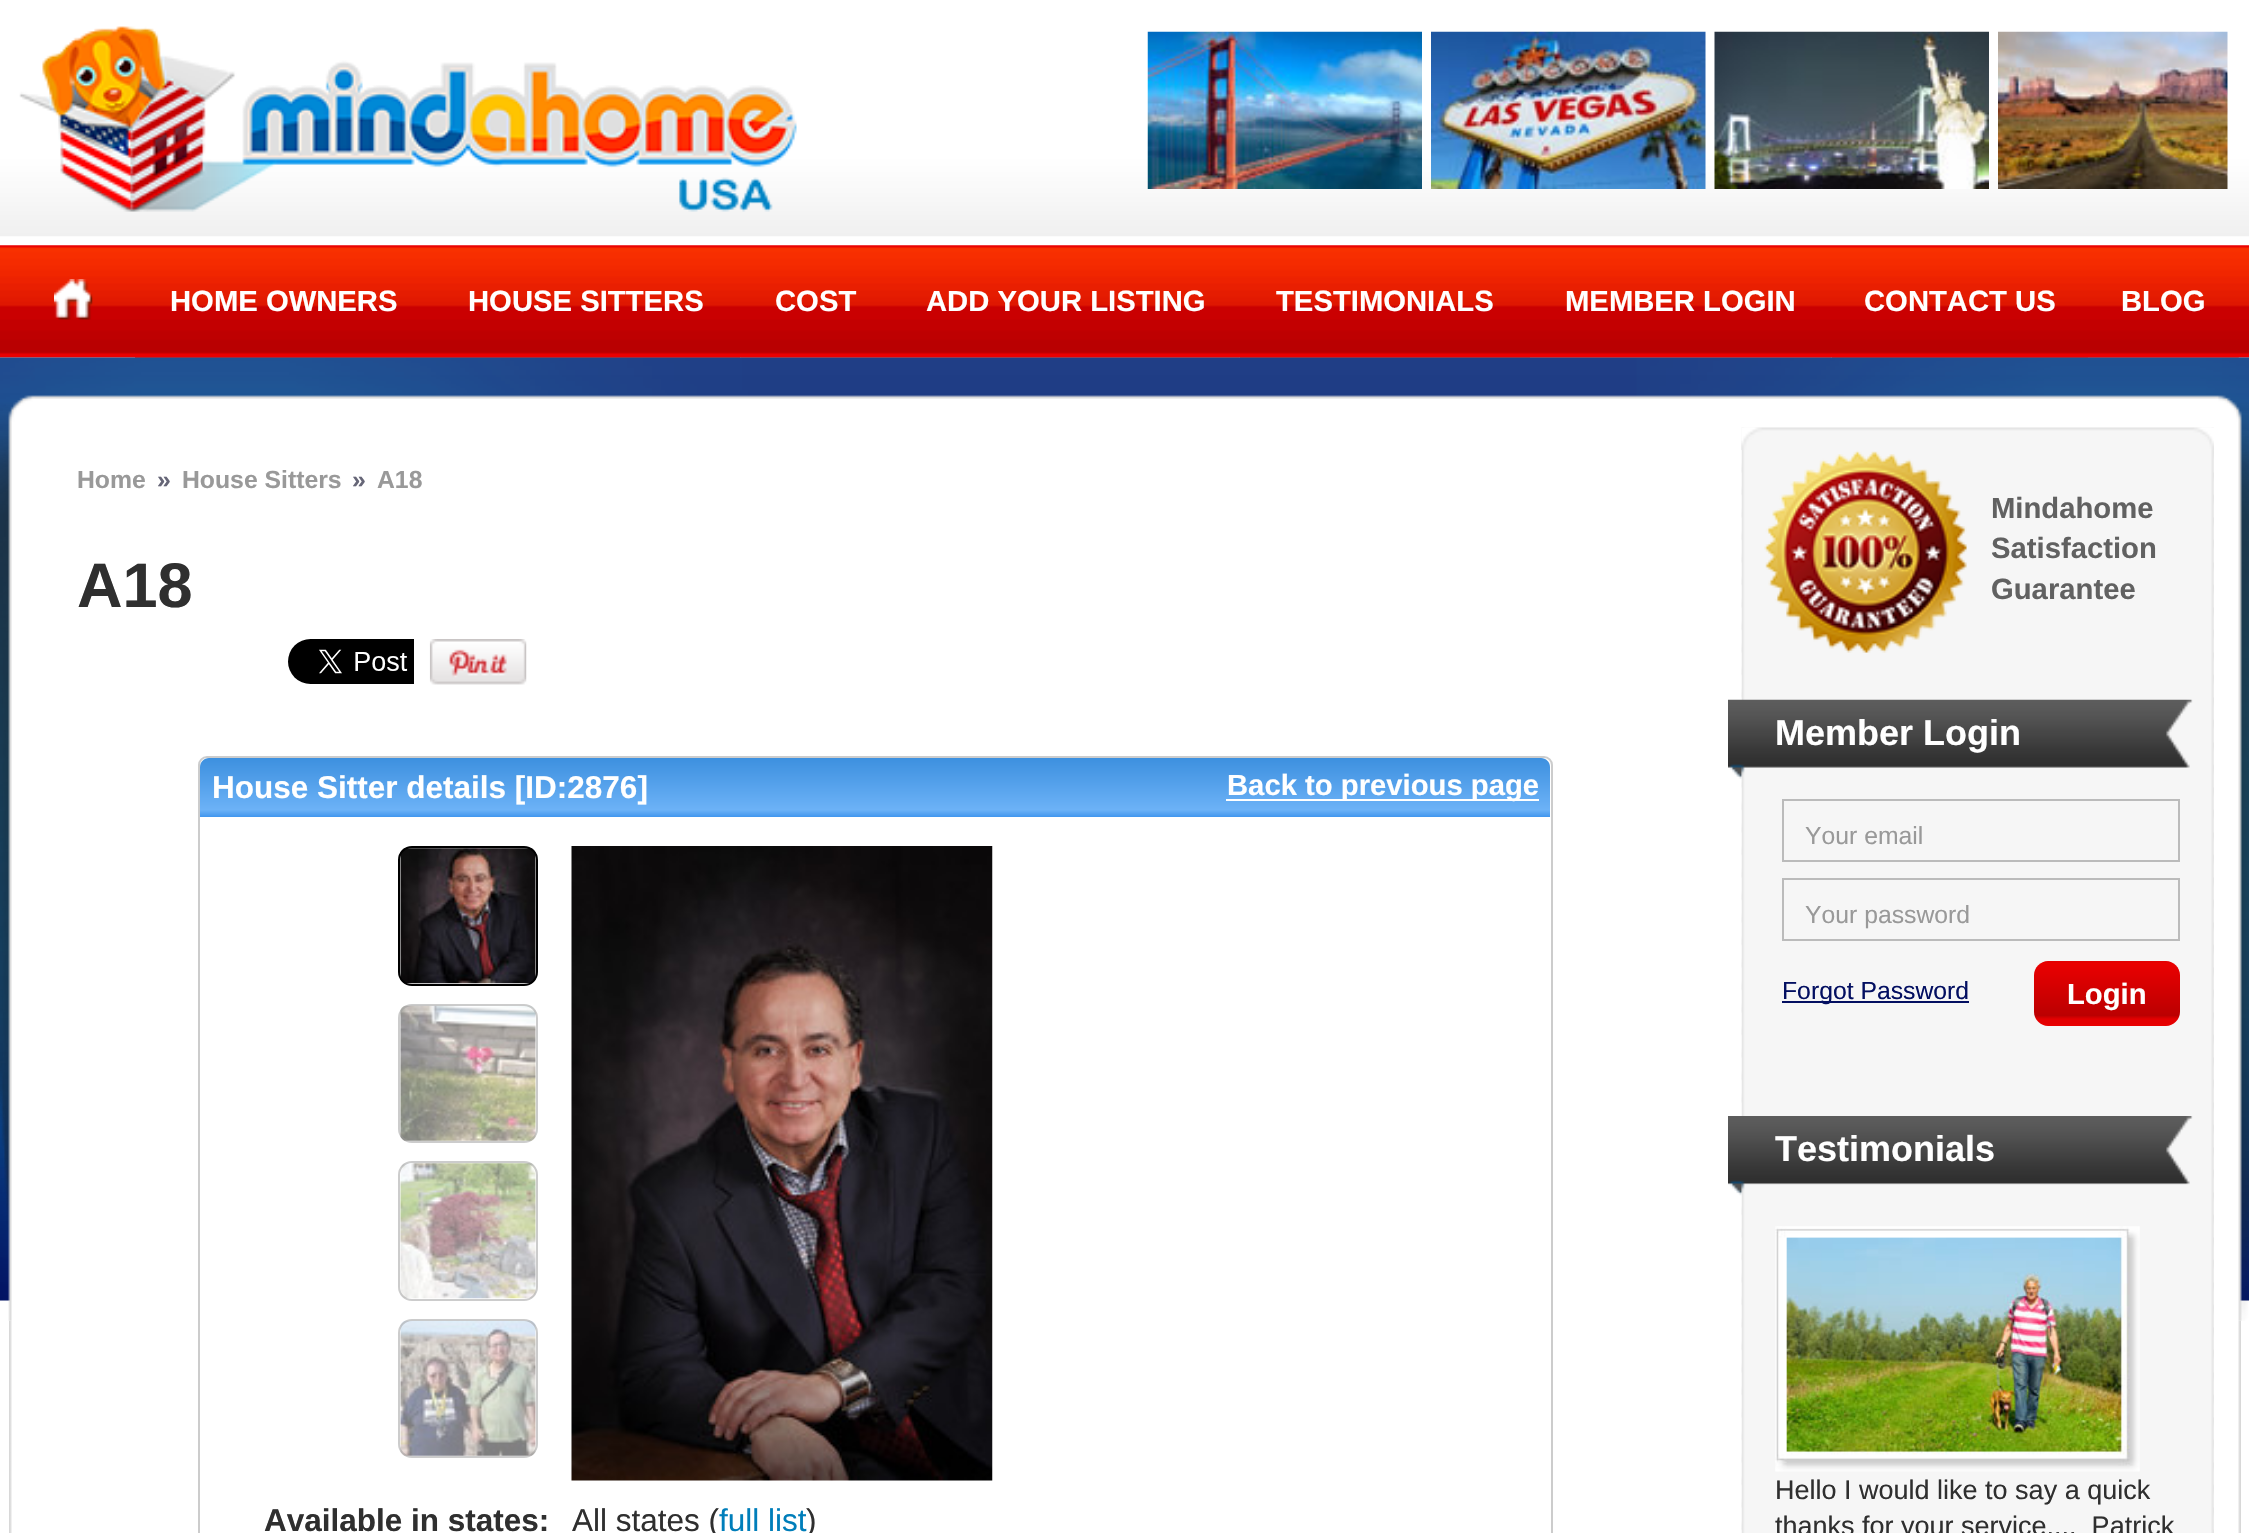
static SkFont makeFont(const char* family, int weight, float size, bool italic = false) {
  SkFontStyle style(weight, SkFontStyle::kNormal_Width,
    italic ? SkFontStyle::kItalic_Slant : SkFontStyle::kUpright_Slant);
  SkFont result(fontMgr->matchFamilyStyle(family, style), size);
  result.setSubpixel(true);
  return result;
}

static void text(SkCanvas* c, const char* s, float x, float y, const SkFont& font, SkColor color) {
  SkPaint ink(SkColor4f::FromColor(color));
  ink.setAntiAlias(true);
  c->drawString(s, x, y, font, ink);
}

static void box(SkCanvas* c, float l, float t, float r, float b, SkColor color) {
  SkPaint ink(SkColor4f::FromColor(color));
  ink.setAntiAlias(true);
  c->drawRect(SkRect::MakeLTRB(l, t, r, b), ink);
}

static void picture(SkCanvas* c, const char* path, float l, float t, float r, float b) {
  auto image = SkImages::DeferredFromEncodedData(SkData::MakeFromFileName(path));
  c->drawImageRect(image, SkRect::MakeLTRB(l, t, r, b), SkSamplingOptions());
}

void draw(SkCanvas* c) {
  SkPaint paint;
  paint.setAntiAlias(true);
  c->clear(0xffffffff);
  picture(c, "img_01.png", 0, 0, 2249, 237);
  picture(c, "img_02.png", 19, 26, 797, 212);
  picture(c, "img_03.png", 1147, 31, 1422, 189);
  picture(c, "img_04.png", 1431, 31, 1706, 189);
  picture(c, "img_05.png", 1714, 31, 1989, 189);
  picture(c, "img_06.png", 1998, 31, 2228, 189);
  picture(c, "img_07.png", 0, 245, 2249, 358);
  picture(c, "img_08.png", 54, 279, 93, 320);
  picture(c, "img_13.png", 0, 357, 2249, 1301);
  box(c, 135, 357, 740, 358, 0xff8b334d);
  SkFont face1 = makeFont("Liberation Sans", 700, 29.25f);
  text(c, "HOME OWNERS", 170, 311, face1, 0xffffffff);
  text(c, "HOUSE SITTERS", 468, 311, face1, 0xffffffff);
  picture(c, "img_09.png", 740, 357, 891, 358);
  text(c, "COST", 775, 311, face1, 0xffffffff);
  picture(c, "img_10.png", 891, 357, 1240, 358);
  text(c, "ADD YOUR LISTING", 926, 311, face1, 0xffffffff);
  box(c, 1240, 357, 1530, 358, 0xff8b334d);
  text(c, "TESTIMONIALS", 1276, 311, face1, 0xffffffff);
  picture(c, "img_11.png", 1530, 357, 1832, 358);
  text(c, "MEMBER LOGIN", 1565, 311, face1, 0xffffffff);
  box(c, 1832, 357, 2088, 358, 0xff8b334d);
  text(c, "CONTACT US", 1864, 311, face1, 0xffffffff);
  picture(c, "img_12.png", 2088, 357, 2239, 358);
  text(c, "BLOG", 2121, 311, face1, 0xffffffff);
  picture(c, "img_14.png", 0, 358, 2249, 1301);
  picture(c, "img_15.png", 0, 395, 2249, 1321);
  picture(c, "img_16.png", 9, 1320, 2241, 1533);
  SkFont face2 = makeFont("Liberation Sans", 700, 24.75f);
  text(c, "Home", 77, 488, face2, 0xff999999);
  text(c, "»", 157, 488, face2, 0xff666677);
  text(c, "House Sitters", 182, 488, face2, 0xff999999);
  text(c, "»", 352, 488, face2, 0xff666677);
  text(c, "A18", 377, 488, face2, 0xff999999);
  SkFont face3 = makeFont("Liberation Sans", 700, 63);
  text(c, "A18", 77, 607, face3, 0xff2f2f2f);
  picture(c, "img_17.png", 288, 639, 414, 684);
  picture(c, "img_18.png", 429, 639, 527, 685);
  paint.setStyle(SkPaint::kStroke_Style);
  paint.setStrokeWidth(2);
  paint.setColor(0xffcccccc);
  c->drawRoundRect(SkRect::MakeLTRB(199, 757, 1552, 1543), 8, 8, paint);
  paint.setStyle(SkPaint::kFill_Style);
  {
    const SkColor colors[] = {0xff3d90df, 0xff6cb2f7, 0xff4096ee};
    const float stops[] = {0, 0.88f, 1};
    const SkPoint ends[] = {{875, 758}, {875, 817}};
    paint.setShader(SkGradientShader::MakeLinear(ends, colors, stops, 3, SkTileMode::kClamp));
    paint.setAlpha(255);
  }
  c->drawPath(SkPathBuilder().moveTo(209, 758).lineTo(1541, 758).cubicTo(1546, 758, 1550, 762, 1550, 767).lineTo(1550, 817).lineTo(200, 817).lineTo(200, 767).cubicTo(200, 762, 204, 758, 209, 758).close().detach(), paint);
  SkFont face4 = makeFont("Liberation Sans", 700, 31.5f);
  text(c, "House Sitter details [ID:2876]", 212, 798, face4, 0xffffffff);
  box(c, 1226, 799, 1539, 801, 0xffffffff);
  text(c, "Back to previous page", 1227, 795, face1, 0xffffffff);
  picture(c, "img_19.png", 400, 848, 536, 984);
  paint.setStyle(SkPaint::kStroke_Style);
  paint.setShader(nullptr);
  paint.setColor(0xff000000);
  c->drawRoundRect(SkRect::MakeLTRB(399, 847, 537, 985), 13, 13, paint);
  picture(c, "img_20.png", 400, 1005, 536, 1141);
  paint.setColor(0x80999999);
  c->drawRoundRect(SkRect::MakeLTRB(399, 1005, 537, 1142), 13, 13, paint);
  picture(c, "img_21.png", 400, 1163, 536, 1299);
  c->drawRoundRect(SkRect::MakeLTRB(399, 1162, 537, 1300), 13, 13, paint);
  picture(c, "img_22.png", 400, 1320, 536, 1456);
  c->drawRoundRect(SkRect::MakeLTRB(399, 1320, 537, 1457), 13, 13, paint);
  picture(c, "img_23.png", 571, 846, 993, 1481);
  text(c, "Available in states:", 264, 1531, face4, 0xff2f2f2f);
  SkFont face5 = makeFont("Liberation Sans", 400, 31.5f);
  text(c, "All states (", 572, 1531, face5, 0xff2f2f2f);
  text(c, "full list", 719, 1531, face5, 0xff007eba);
  text(c, ")", 806, 1531, face5, 0xff2f2f2f);
  picture(c, "img_24.png", 1741, 427, 2214, 1533);
  picture(c, "img_25.png", 1741, 427, 2214, 450);
  picture(c, "img_26.png", 1764, 450, 1967, 653);
  text(c, "Mindahome", 1991, 518, face1, 0xff616161);
  text(c, "Satisfaction", 1991, 558, face1, 0xff616161);
  text(c, "Guarantee", 1991, 599, face1, 0xff616161);
  picture(c, "img_27.png", 1728, 699, 2193, 779);
  SkFont face6 = makeFont("Liberation Sans", 700, 36);
  text(c, "Member Login", 1775, 745, face6, 0xffffffff);
  paint.setColor(0xffbbbbbb);
  c->drawRect(SkRect::MakeLTRB(1783, 800, 2179, 861), paint);
  SkFont face7 = makeFont("Liberation Sans", 400, 24.75f);
  text(c, "Your email", 1805, 844, face7, 0xff999999);
  c->drawRect(SkRect::MakeLTRB(1783, 879, 2179, 940), paint);
  text(c, "Your password", 1805, 923, face7, 0xff999999);
  box(c, 1782, 1001, 1969, 1003, 0xff030f61);
  text(c, "Forgot Password", 1782, 999, face7, 0xff030f61);
  c->save();
  c->clipPath(SkPathBuilder().moveTo(2048, 961).lineTo(2166, 961).cubicTo(2173.5f, 961, 2180, 967.5f, 2180, 975).lineTo(2180, 1012).cubicTo(2180, 1019.5f, 2173.5f, 1026, 2166, 1026).lineTo(2048, 1026).cubicTo(2040.5f, 1026, 2034, 1019.5f, 2034, 1012).lineTo(2034, 975).cubicTo(2034, 967.5f, 2040.5f, 961, 2048, 961).close().detach(), true);
  paint.setStyle(SkPaint::kFill_Style);
  {
    const SkColor colors[] = {0xffea0000, 0xffe40001, 0xffbb0001, 0xffe40001};
    const float stops[] = {0, 0.11f, 0.86f, 0.92f};
    const SkPoint ends[] = {{2107, 902}, {2107, 963}};
    paint.setShader(SkGradientShader::MakeLinear(ends, colors, stops, 4, SkTileMode::kClamp));
    paint.setAlpha(255);
  }
  c->drawRect(SkRect::MakeLTRB(2034, 961, 2180, 963), paint);
  {
    const SkColor colors[] = {0xffea0000, 0xffe40001, 0xffbb0001, 0xffe40001};
    const float stops[] = {0, 0.11f, 0.86f, 0.92f};
    const SkPoint ends[] = {{2107, 963}, {2107, 1024}};
    paint.setShader(SkGradientShader::MakeLinear(ends, colors, stops, 4, SkTileMode::kClamp));
    paint.setAlpha(255);
  }
  c->drawRect(SkRect::MakeLTRB(2034, 963, 2180, 1024), paint);
  {
    const SkColor colors[] = {0xffea0000, 0xffe40001, 0xffbb0001, 0xffe40001};
    const float stops[] = {0, 0.11f, 0.86f, 0.92f};
    const SkPoint ends[] = {{2107, 1024}, {2107, 1085}};
    paint.setShader(SkGradientShader::MakeLinear(ends, colors, stops, 4, SkTileMode::kClamp));
    paint.setAlpha(255);
  }
  c->drawRect(SkRect::MakeLTRB(2034, 1024, 2180, 1026), paint);
  c->restore();
  text(c, "Login", 2067, 1004, face1, 0xffffffff);
  picture(c, "img_28.png", 1728, 1116, 2193, 1196);
  text(c, "Testimonials", 1775, 1161, face6, 0xffffffff);
  picture(c, "img_29.png", 1775, 1226, 2140, 1472);
  SkFont face8 = makeFont("Liberation Sans", 400, 27);
  text(c, "Hello I would like to say a quick", 1775, 1499, face8, 0xff2f2f2f);
  text(c, "thanks for your service....  Patrick", 1775, 1535, face8, 0xff2f2f2f);
}
